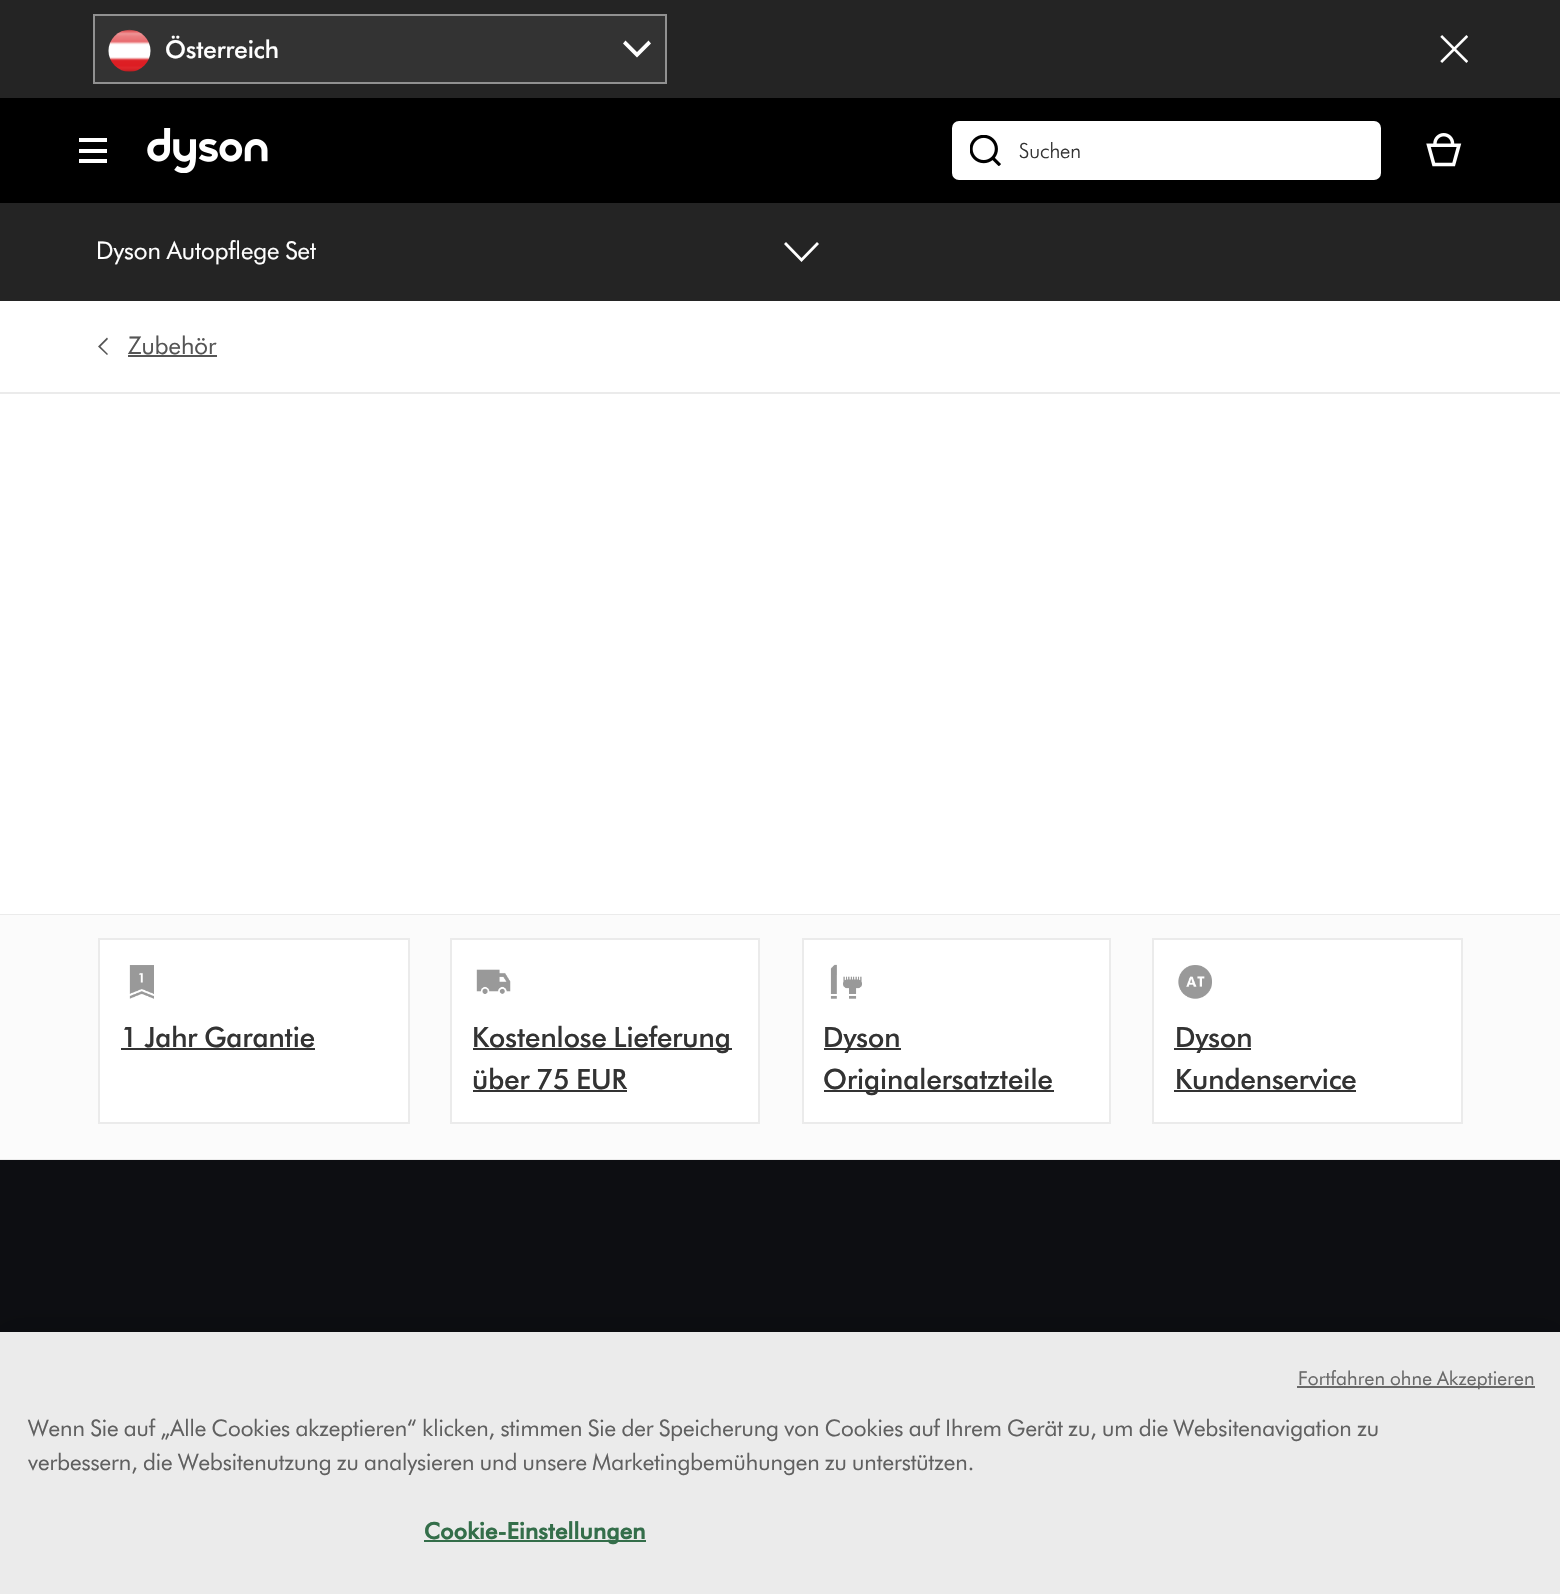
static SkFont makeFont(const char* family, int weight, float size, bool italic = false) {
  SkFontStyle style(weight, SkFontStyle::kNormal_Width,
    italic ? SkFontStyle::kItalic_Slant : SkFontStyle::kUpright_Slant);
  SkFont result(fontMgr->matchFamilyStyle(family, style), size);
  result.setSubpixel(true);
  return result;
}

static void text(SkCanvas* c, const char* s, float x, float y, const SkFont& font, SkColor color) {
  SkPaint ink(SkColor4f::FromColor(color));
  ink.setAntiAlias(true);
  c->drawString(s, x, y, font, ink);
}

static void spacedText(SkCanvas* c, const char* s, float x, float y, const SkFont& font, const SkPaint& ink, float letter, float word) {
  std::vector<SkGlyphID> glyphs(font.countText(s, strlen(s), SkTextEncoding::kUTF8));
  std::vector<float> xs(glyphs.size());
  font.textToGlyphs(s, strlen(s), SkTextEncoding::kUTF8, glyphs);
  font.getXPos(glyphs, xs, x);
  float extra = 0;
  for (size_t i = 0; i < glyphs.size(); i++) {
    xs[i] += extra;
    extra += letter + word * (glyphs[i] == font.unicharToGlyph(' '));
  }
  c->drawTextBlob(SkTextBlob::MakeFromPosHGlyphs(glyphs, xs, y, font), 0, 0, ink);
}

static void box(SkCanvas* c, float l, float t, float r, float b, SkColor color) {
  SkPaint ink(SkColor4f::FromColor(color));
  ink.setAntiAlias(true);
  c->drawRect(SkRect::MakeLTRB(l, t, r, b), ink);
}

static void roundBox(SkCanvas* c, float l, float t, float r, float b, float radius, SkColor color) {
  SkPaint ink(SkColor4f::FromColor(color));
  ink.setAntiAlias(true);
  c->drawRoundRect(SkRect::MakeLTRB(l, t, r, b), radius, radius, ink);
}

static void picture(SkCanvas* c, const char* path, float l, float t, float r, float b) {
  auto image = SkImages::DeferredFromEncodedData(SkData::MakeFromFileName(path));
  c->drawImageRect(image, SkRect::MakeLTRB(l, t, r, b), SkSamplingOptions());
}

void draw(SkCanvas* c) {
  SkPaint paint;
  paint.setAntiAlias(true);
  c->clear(0xffffffff);
  box(c, 0, 98, 1560, 203, 0xff000000);
  box(c, 0, 0, 1560, 98, 0xff242424);
  paint.setColor(0xff333333);
  c->drawRect(SkRect::MakeLTRB(94, 15, 666, 83), paint);
  paint.setStyle(SkPaint::kStroke_Style);
  paint.setStrokeWidth(2);
  paint.setColor(0xff919191);
  c->drawRect(SkRect::MakeLTRB(94, 15, 666, 83), paint);
  picture(c, "img_01.png", 108, 29, 151, 72);
  SkFont face1 = makeFont("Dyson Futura", 500, 24.5f);
  text(c, "Österreich", 165, 58, face1, 0xffffffff);
  paint.setStyle(SkPaint::kFill_Style);
  paint.setColor(0xffffffff);
  c->drawPath(SkPathBuilder().moveTo(637, 57.5f).lineTo(623, 43.5f).lineTo(625.5f, 40.5f).lineTo(637, 52).lineTo(648.5f, 40.5f).lineTo(651, 43.5f).close().detach(), paint);
  picture(c, "img_02.png", 1440, 35, 1468, 63);
  box(c, 79, 149, 107, 153, 0xffffffff);
  box(c, 79, 138, 107, 142, 0xffffffff);
  box(c, 79, 159, 107, 163, 0xffffffff);
  picture(c, "img_03.png", 147, 128, 268, 173);
  roundBox(c, 952, 121, 1381, 180, 7, 0xffffffff);
  picture(c, "img_04.png", 970, 135, 1001, 166);
  SkFont face2 = makeFont("Dyson Futura", 300, 21);
  text(c, "Suchen", 1019, 158, face2, 0xff333333);
  picture(c, "img_05.png", 1426, 133, 1462, 167);
  box(c, 0, 203, 1560, 301, 0xff242424);
  SkFont face3 = makeFont("Dyson Futura", 400, 24.5f);
  text(c, "Dyson Autopflege Set", 96, 259, face3, 0xffffffff);
  c->drawPath(SkPathBuilder().moveTo(817, 242).lineTo(801.5f, 258).lineTo(786, 242).lineTo(784, 244).lineTo(801.5f, 262).lineTo(819, 244).close().detach(), paint);
  box(c, 0, 392, 1560, 394, 0xffebebeb);
  paint.setColor(0xff555555);
  c->drawPath(SkPathBuilder().moveTo(107, 337.5f).lineTo(98, 346.5f).lineTo(107, 355).lineTo(108, 354).lineTo(100.5f, 346.5f).lineTo(108, 339).close().detach(), paint);
  text(c, "Zubehör", 128, 354, face3, 0xff555555);
  box(c, 128, 355, 217, 357, 0xff555555);
  box(c, 0, 914, 1560, 915, 0xffebebeb);
  box(c, 0, 1159, 1560, 1160, 0xffebebeb);
  box(c, 0, 915, 1560, 1159, 0xfffbfbfb);
  paint.setColor(0xffffffff);
  c->drawRect(SkRect::MakeLTRB(99, 939, 409, 1123), paint);
  paint.setStyle(SkPaint::kStroke_Style);
  paint.setColor(0xffebebeb);
  c->drawRect(SkRect::MakeLTRB(99, 939, 409, 1123), paint);
  picture(c, "img_06.png", 129, 965, 154, 999);
  SkFont face4 = makeFont("Dyson Futura", 500, 28);
  text(c, "1 Jahr Garantie", 121, 1047, face4, 0xff333333);
  box(c, 121, 1048, 315, 1050, 0xff333333);
  paint.setStyle(SkPaint::kFill_Style);
  paint.setColor(0xffffffff);
  c->drawRect(SkRect::MakeLTRB(451, 939, 759, 1123), paint);
  paint.setStyle(SkPaint::kStroke_Style);
  paint.setColor(0xffebebeb);
  c->drawRect(SkRect::MakeLTRB(451, 939, 759, 1123), paint);
  picture(c, "img_07.png", 476, 969, 511, 994);
  box(c, 473, 1048, 732, 1050, 0xff333333);
  text(c, "Kostenlose Lieferung", 472, 1047, face4, 0xff333333);
  text(c, "über 75 EUR", 472, 1089, face4, 0xff333333);
  box(c, 473, 1090, 627, 1092, 0xff333333);
  paint.setStyle(SkPaint::kFill_Style);
  paint.setColor(0xffffffff);
  c->drawRect(SkRect::MakeLTRB(803, 939, 1110, 1123), paint);
  paint.setStyle(SkPaint::kStroke_Style);
  paint.setColor(0xffebebeb);
  c->drawRect(SkRect::MakeLTRB(803, 939, 1110, 1123), paint);
  picture(c, "img_08.png", 830, 964, 862, 999);
  box(c, 824, 1048, 901, 1050, 0xff333333);
  text(c, "Dyson", 823, 1047, face4, 0xff333333);
  box(c, 824, 1090, 1054, 1092, 0xff333333);
  text(c, "Originalersatzteile", 823, 1089, face4, 0xff333333);
  paint.setStyle(SkPaint::kFill_Style);
  paint.setColor(0xffffffff);
  c->drawRect(SkRect::MakeLTRB(1153, 939, 1462, 1123), paint);
  paint.setStyle(SkPaint::kStroke_Style);
  paint.setColor(0xffebebeb);
  c->drawRect(SkRect::MakeLTRB(1153, 939, 1462, 1123), paint);
  picture(c, "img_09.png", 1178, 965, 1212, 999);
  box(c, 1174, 1048, 1251, 1050, 0xff333333);
  text(c, "Dyson", 1175, 1047, face4, 0xff333333);
  text(c, "Kundenservice", 1175, 1089, face4, 0xff333333);
  box(c, 1174, 1090, 1356, 1092, 0xff333333);
  box(c, 0, 1160, 1560, 1332, 0xff0d0e12);
  paint.setStyle(SkPaint::kFill_Style);
  paint.setColor(0x33000000);
  paint.setMaskFilter(SkMaskFilter::MakeBlur(kNormal_SkBlurStyle, 16));
  c->drawRect(SkRect::MakeLTRB(0, 1332, 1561, 1594), paint);
  paint.setMaskFilter(nullptr);
  box(c, 0, 1332, 1560, 1594, 0xffebebeb);
  box(c, 1297, 1386, 1535, 1388, 0xff696969);
  SkFont face5 = makeFont("Dyson Futura", 400, 19.25f);
  paint.setColor(0xff696969);
  spacedText(c, "Fortfahren ohne Akzeptieren", 1298, 1385, face5, paint, 0.2f, 0);
  SkFont face6 = makeFont("Dyson Futura", 400, 22.75f);
  text(c, "Wenn Sie auf „Alle Cookies akzeptieren“ klicken, stimmen Sie der Speicherung von Cookies auf Ihrem Gerät zu, um die Websitenavigation zu", 28, 1436, face6, 0xff606060);
  text(c, "verbessern, die Websitenutzung zu analysieren und unsere Marketingbemühungen zu unterstützen.", 28, 1470, face6, 0xff606060);
  box(c, 424, 1540, 646, 1542, 0xff346e4a);
  SkFont face7 = makeFont("Dyson Futura", 700, 22.75f);
  paint.setColor(0xff346e4a);
  spacedText(c, "Cookie-Einstellungen", 424, 1539, face7, paint, 0.25f, 0);
}
